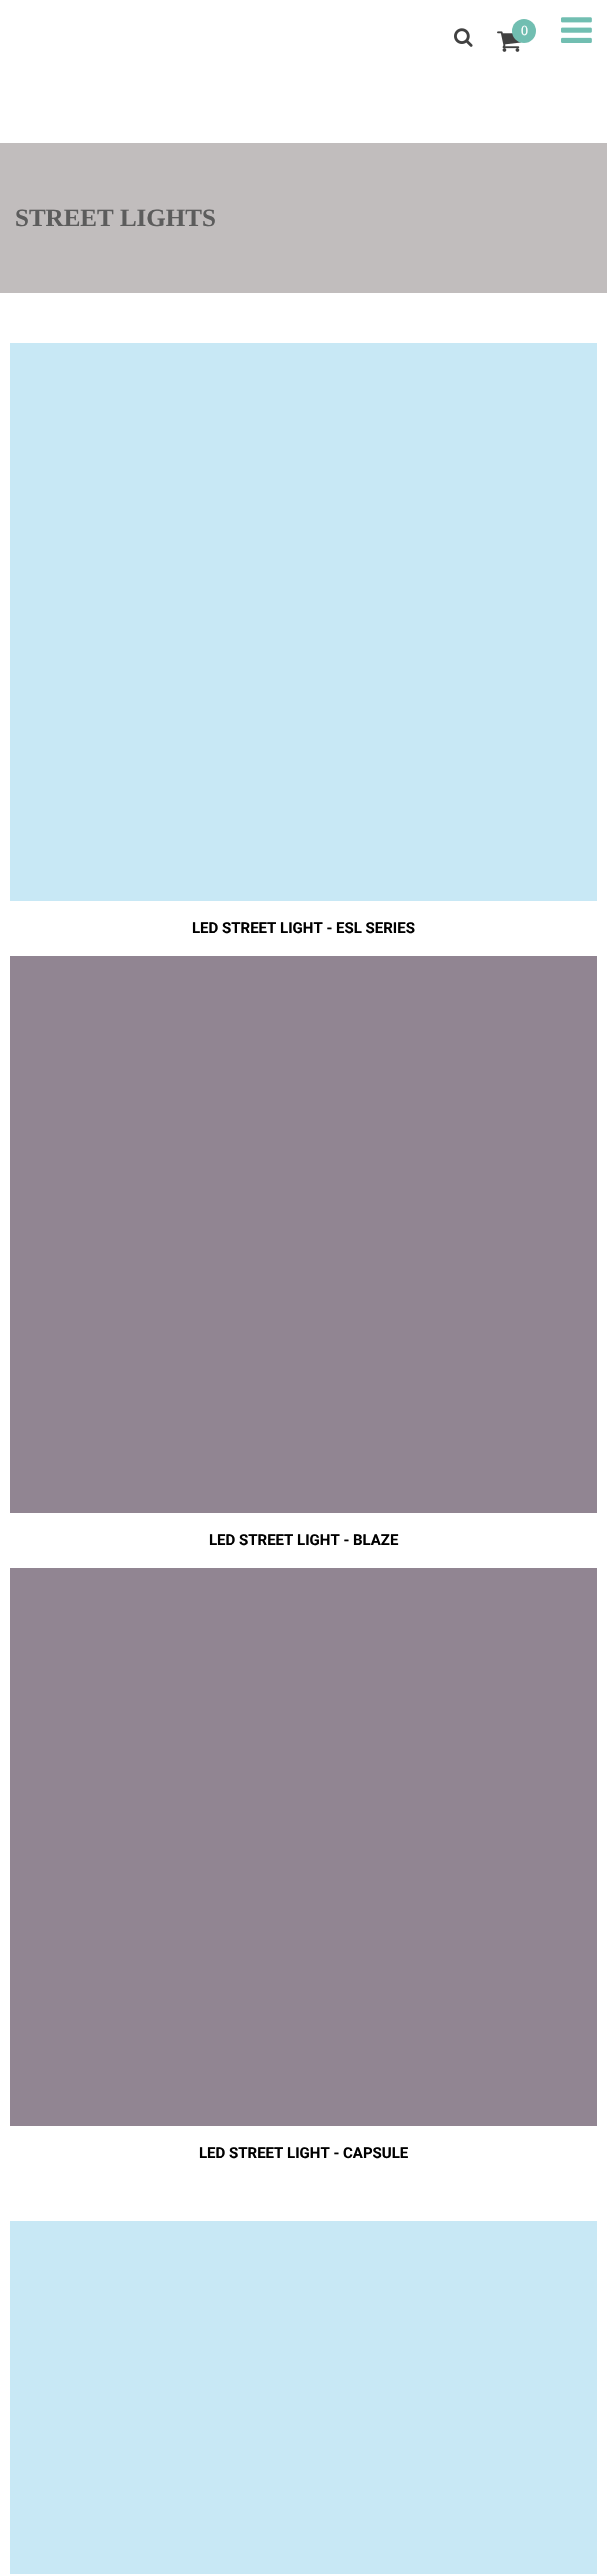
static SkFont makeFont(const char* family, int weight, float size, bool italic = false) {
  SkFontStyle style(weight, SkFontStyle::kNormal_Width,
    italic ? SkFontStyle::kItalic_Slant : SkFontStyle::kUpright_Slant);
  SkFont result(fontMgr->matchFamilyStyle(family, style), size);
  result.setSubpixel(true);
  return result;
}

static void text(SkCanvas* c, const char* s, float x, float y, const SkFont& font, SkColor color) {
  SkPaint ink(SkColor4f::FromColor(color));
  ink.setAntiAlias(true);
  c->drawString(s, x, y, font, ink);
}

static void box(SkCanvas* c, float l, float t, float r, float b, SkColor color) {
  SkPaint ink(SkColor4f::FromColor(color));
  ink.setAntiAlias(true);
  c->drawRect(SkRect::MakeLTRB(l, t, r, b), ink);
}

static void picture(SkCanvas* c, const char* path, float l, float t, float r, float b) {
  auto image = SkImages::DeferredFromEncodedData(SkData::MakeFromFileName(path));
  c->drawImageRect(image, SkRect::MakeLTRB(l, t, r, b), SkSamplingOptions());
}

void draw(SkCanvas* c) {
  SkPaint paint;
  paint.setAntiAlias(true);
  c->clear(0xffffffff);
  picture(c, "img_01.png", 454, 28, 473, 47);
  picture(c, "img_02.png", 497, 31, 521, 52);
  paint.setColor(0xff71beb1);
  c->drawCircle(524, 31, 12, paint);
  SkFont face1 = makeFont("Liberation Serif", 400, 14);
  text(c, "0", 521, 35, face1, 0xffffffff);
  picture(c, "img_03.png", 561, 17, 592, 43);
  box(c, 0, 143, 607, 293, 0xffc1bdbd);
  SkFont face2 = makeFont("Liberation Serif", 700, 25);
  text(c, "STREET LIGHTS", 15, 226, face2, 0xff5c5c5c);
  box(c, 10, 343, 597, 901, 0xffc8e8f5);
  SkFont face3 = makeFont("Roboto", 700, 15);
  text(c, "LED STREET LIGHT - ESL SERIES", 192, 933, face3, 0xff000000);
  box(c, 10, 956, 597, 1513, 0xff918592);
  text(c, "LED STREET LIGHT - BLAZE", 209, 1545, face3, 0xff000000);
  box(c, 10, 1568, 597, 2126, 0xff918592);
  text(c, "LED STREET LIGHT - CAPSULE", 199, 2158, face3, 0xff000000);
  box(c, 10, 2221, 597, 2574, 0xffc8e8f5);
}
